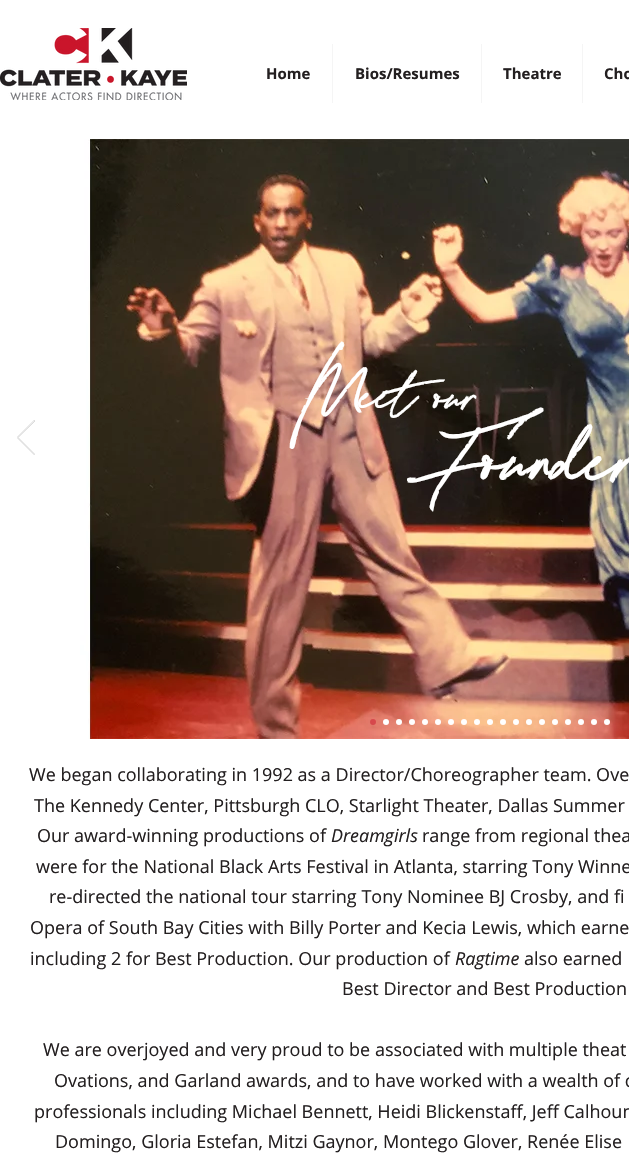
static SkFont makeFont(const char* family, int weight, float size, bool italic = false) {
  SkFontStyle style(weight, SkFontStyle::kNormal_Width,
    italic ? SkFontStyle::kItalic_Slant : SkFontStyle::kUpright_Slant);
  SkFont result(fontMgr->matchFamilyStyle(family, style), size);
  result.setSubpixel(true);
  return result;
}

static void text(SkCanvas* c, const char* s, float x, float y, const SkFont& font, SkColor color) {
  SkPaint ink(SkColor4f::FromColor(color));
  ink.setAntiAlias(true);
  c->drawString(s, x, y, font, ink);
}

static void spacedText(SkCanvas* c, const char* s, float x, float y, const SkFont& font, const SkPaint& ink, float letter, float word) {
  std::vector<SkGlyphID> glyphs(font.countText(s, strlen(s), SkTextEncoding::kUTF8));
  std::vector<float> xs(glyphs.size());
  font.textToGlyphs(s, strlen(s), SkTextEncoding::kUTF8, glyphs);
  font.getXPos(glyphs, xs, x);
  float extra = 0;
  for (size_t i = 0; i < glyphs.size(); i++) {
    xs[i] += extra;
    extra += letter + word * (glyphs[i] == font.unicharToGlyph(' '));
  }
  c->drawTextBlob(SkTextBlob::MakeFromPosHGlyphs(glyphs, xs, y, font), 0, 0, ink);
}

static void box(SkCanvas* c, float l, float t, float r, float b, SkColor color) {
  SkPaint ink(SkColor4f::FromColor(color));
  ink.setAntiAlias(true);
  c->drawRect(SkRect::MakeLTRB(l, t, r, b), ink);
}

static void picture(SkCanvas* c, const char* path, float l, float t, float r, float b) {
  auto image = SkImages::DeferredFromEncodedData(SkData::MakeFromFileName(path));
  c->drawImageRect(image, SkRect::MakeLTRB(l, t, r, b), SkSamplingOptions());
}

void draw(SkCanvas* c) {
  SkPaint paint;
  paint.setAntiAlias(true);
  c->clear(0xffffffff);
  picture(c, "img_01.png", 0, 28, 187, 100);
  SkFont face1 = makeFont("Open Sans", 700, 15);
  text(c, "Home", 266, 79, face1, 0xff231f20);
  box(c, 332, 44, 333, 103, 0xfff5f5f5);
  text(c, "Bios/Resumes", 355, 79, face1, 0xff231f20);
  box(c, 481, 44, 482, 103, 0xfff5f5f5);
  text(c, "Theatre", 503, 79, face1, 0xff231f20);
  box(c, 582, 44, 583, 103, 0xfff5f5f5);
  text(c, "Cho", 604, 79, face1, 0xff231f20);
  picture(c, "img_02.png", 0, 139, 629, 739);
  c->save();
  c->clipRect(SkRect::MakeLTRB(17, 420, 35, 455));
  paint.setStyle(SkPaint::kStroke_Style);
  paint.setStrokeWidth(0.9f);
  paint.setColor(0xffd5d5d5);
  c->drawPath(SkPathBuilder().moveTo(34.5f, 455).lineTo(17, 437.5f).lineTo(34.5f, 420).lineTo(35, 421).lineTo(18, 437.5f).lineTo(35, 454.5f).close().detach(), paint);
  c->restore();
  SkFont face2 = makeFont("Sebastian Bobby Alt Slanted", 700, 100);
  paint.setStyle(SkPaint::kFill_Style);
  paint.setColor(0xffffffff);
  spacedText(c, "M", 298, 421, face2, paint, -5, 0);
  SkFont face3 = makeFont("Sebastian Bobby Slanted", 700, 74);
  text(c, "eet", 358, 421, face3, 0xffffffff);
  SkFont face4 = makeFont("Sebastian Bobby Slanted", 700, 70);
  text(c, "our", 433, 421, face4, 0xffffffff);
  SkFont face5 = makeFont("Sebastian Bobby Alt Slanted", 700, 118);
  text(c, "F", 416, 501, face5, 0xffffffff);
  SkFont face6 = makeFont("Sebastian Bobby Slanted", 700, 118);
  text(c, "ounder", 481, 501, face6, 0xffffffff);
  paint.setColor(0x80ca152b);
  c->drawCircle(373, 722, 3, paint);
  paint.setColor(0xffffffff);
  c->drawCircle(386, 722, 3, paint);
  c->drawCircle(399, 722, 3, paint);
  c->drawCircle(412, 722, 3, paint);
  c->drawCircle(425, 722, 3, paint);
  c->drawCircle(438, 722, 3, paint);
  c->drawCircle(451, 722, 3, paint);
  c->drawCircle(464, 722, 3, paint);
  c->drawCircle(477, 722, 3, paint);
  c->drawCircle(490, 722, 3, paint);
  c->drawCircle(503, 722, 3, paint);
  c->drawCircle(516, 722, 3, paint);
  c->drawCircle(529, 722, 3, paint);
  c->drawCircle(542, 722, 3, paint);
  c->drawCircle(555, 722, 3, paint);
  c->drawCircle(568, 722, 3, paint);
  c->drawCircle(581, 722, 3, paint);
  c->drawCircle(594, 722, 3, paint);
  c->drawCircle(607, 722, 3, paint);
  SkFont face7 = makeFont("Open Sans", 400, 18);
  text(c, "We began collaborating in 1992 as a Director/Choreographer team. Ove", 29, 781, face7, 0xff231f20);
  text(c, "The Kennedy Center, Pittsburgh CLO, Starlight Theater, Dallas Summer", 34, 812, face7, 0xff231f20);
  text(c, "Our award-winning productions of", 37, 842, face7, 0xff231f20);
  SkFont face8 = makeFont("Open Sans", 400, 18, true);
  text(c, "Dreamgirls", 331, 842, face8, 0xff231f20);
  text(c, "range from regional thea", 422, 842, face7, 0xff231f20);
  text(c, "were for the National Black Arts Festival in Atlanta, starring Tony Winne", 36, 873, face7, 0xff231f20);
  text(c, "re-directed the national tour starring Tony Nominee BJ Crosby, and fi", 49, 903, face7, 0xff231f20);
  text(c, "Opera of South Bay Cities with Billy Porter and Kecia Lewis, which earne", 30, 934, face7, 0xff231f20);
  text(c, "including 2 for Best Production. Our production of", 30, 965, face7, 0xff231f20);
  text(c, "Ragtime", 455, 965, face8, 0xff231f20);
  text(c, "also earned", 524, 965, face7, 0xff231f20);
  text(c, "Best Director and Best Production", 342, 995, face7, 0xff231f20);
  text(c, "We are overjoyed and very proud to be associated with multiple theat", 43, 1056, face7, 0xff231f20);
  text(c, "Ovations, and Garland awards, and to have worked with a wealth of c", 54, 1087, face7, 0xff231f20);
  text(c, "professionals including Michael Bennett, Heidi Blickenstaff, Jeff Calhoun", 34, 1118, face7, 0xff231f20);
  text(c, "Domingo, Gloria Estefan, Mitzi Gaynor, Montego Glover, Renée Elise", 55, 1148, face7, 0xff231f20);
}
